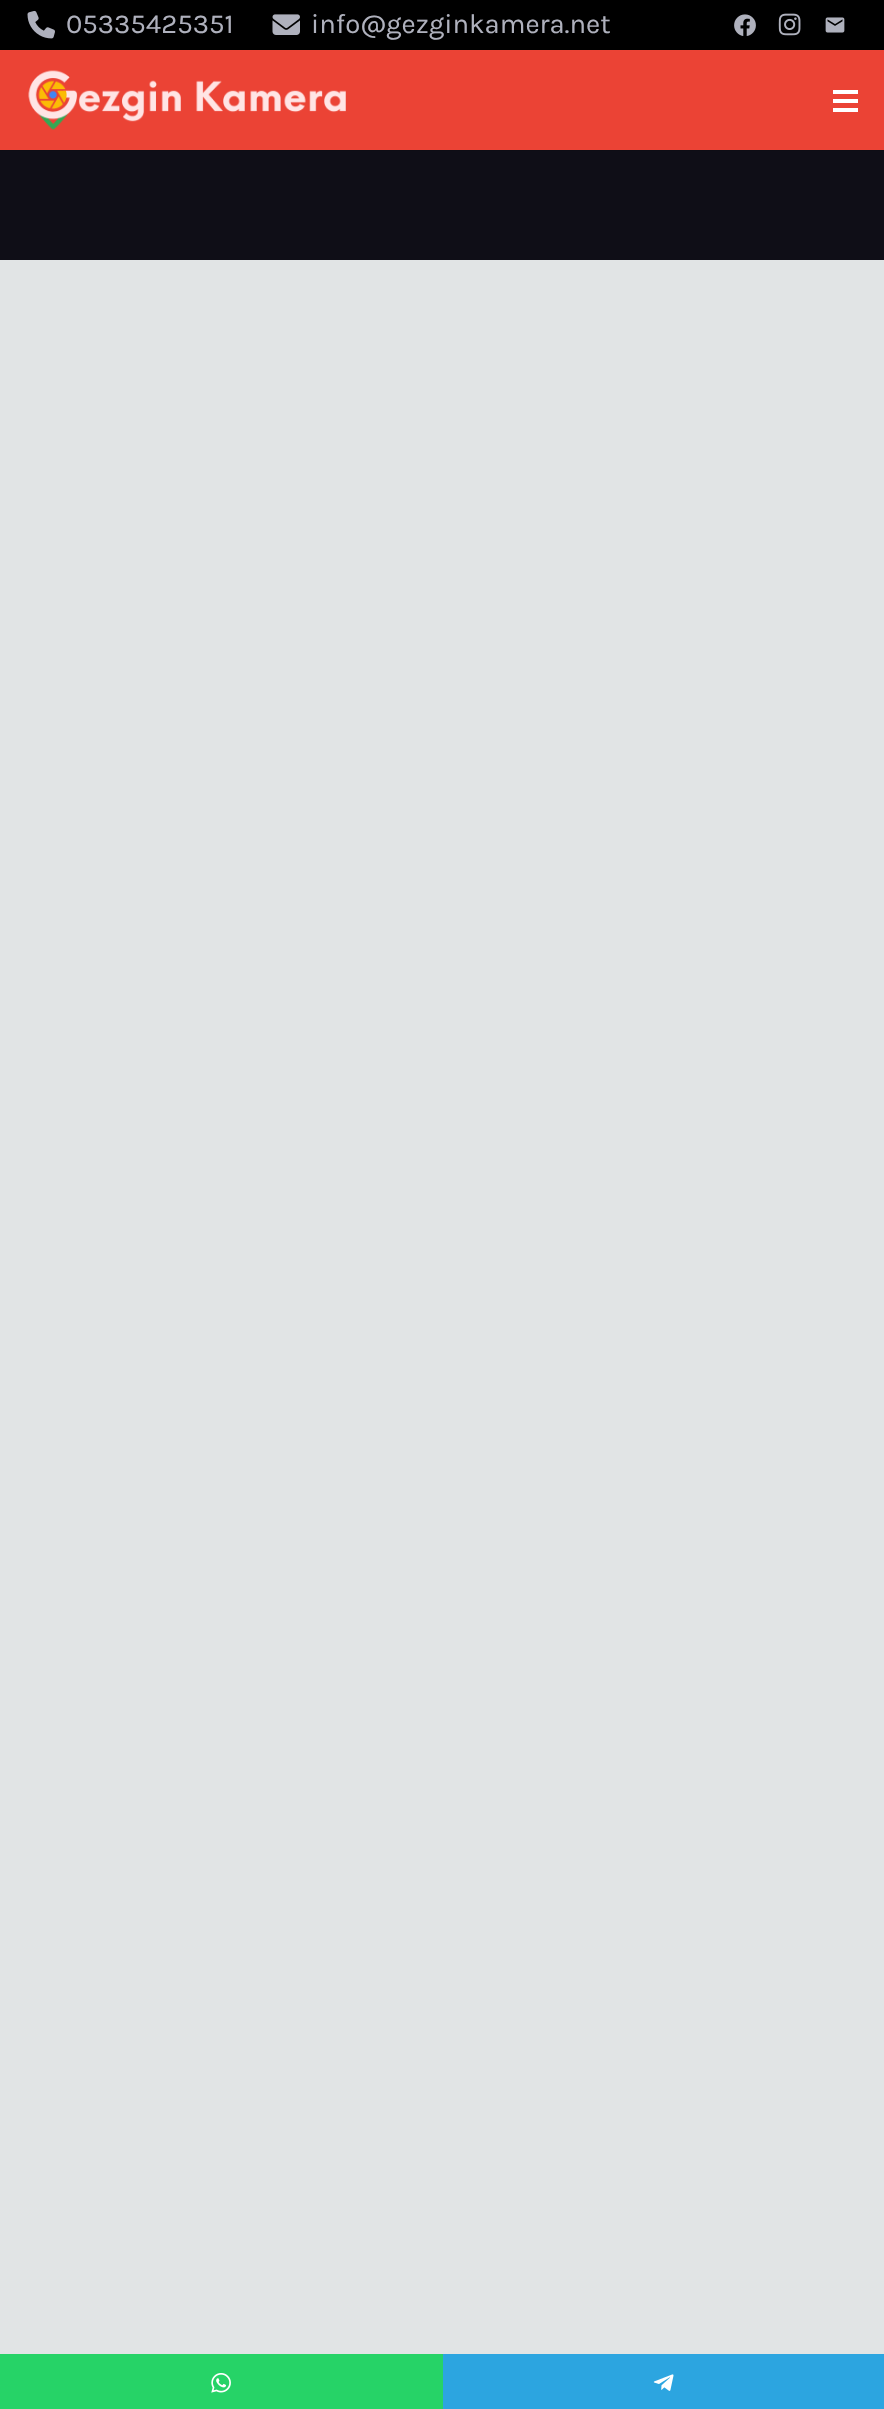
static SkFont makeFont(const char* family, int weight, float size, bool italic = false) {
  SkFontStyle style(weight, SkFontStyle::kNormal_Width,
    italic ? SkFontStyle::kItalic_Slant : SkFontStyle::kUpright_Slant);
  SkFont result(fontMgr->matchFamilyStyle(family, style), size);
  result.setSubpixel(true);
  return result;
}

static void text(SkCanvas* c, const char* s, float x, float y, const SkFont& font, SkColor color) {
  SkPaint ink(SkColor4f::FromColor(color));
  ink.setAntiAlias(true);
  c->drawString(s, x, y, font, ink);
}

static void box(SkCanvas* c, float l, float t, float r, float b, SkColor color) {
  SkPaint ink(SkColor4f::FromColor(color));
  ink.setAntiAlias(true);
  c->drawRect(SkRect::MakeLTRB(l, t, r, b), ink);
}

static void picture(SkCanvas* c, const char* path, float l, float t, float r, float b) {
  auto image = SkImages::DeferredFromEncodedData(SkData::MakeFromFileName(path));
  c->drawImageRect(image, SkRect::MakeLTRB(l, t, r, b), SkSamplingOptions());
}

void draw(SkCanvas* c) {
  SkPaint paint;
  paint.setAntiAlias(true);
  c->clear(0xffe1e4e5);
  box(c, 0, 151, 884, 260, 0xff0f0e17);
  box(c, 0, 0, 884, 50, 0xff000000);
  picture(c, "img_01.png", 27, 10, 55, 39);
  SkFont face1 = makeFont("Karla", 400, 27.5f);
  text(c, "05335425351", 66, 33, face1, 0xffafb1bd);
  picture(c, "img_02.png", 272, 14, 300, 35);
  text(c, "info@gezginkamera.net", 311, 33, face1, 0xffafb1bd);
  picture(c, "img_03.png", 734, 14, 756, 36);
  picture(c, "img_04.png", 778, 13, 801, 36);
  picture(c, "img_05.png", 825, 17, 845, 33);
  box(c, 0, 150, 884, 151, 0xff0e0d15);
  box(c, 0, 50, 884, 150, 0xffeb4335);
  picture(c, "img_06.png", 28, 70, 346, 130);
  box(c, 833, 99, 858, 103, 0xffffffff);
  box(c, 833, 90, 858, 94, 0xffffffff);
  box(c, 833, 108, 858, 112, 0xffffffff);
  box(c, 0, 2354, 443, 2409, 0xff26d367);
  picture(c, "img_07.png", 211, 2373, 231, 2393);
  box(c, 443, 2354, 884, 2409, 0xff2ca5e0);
  picture(c, "img_08.png", 653, 2374, 674, 2391);
}
